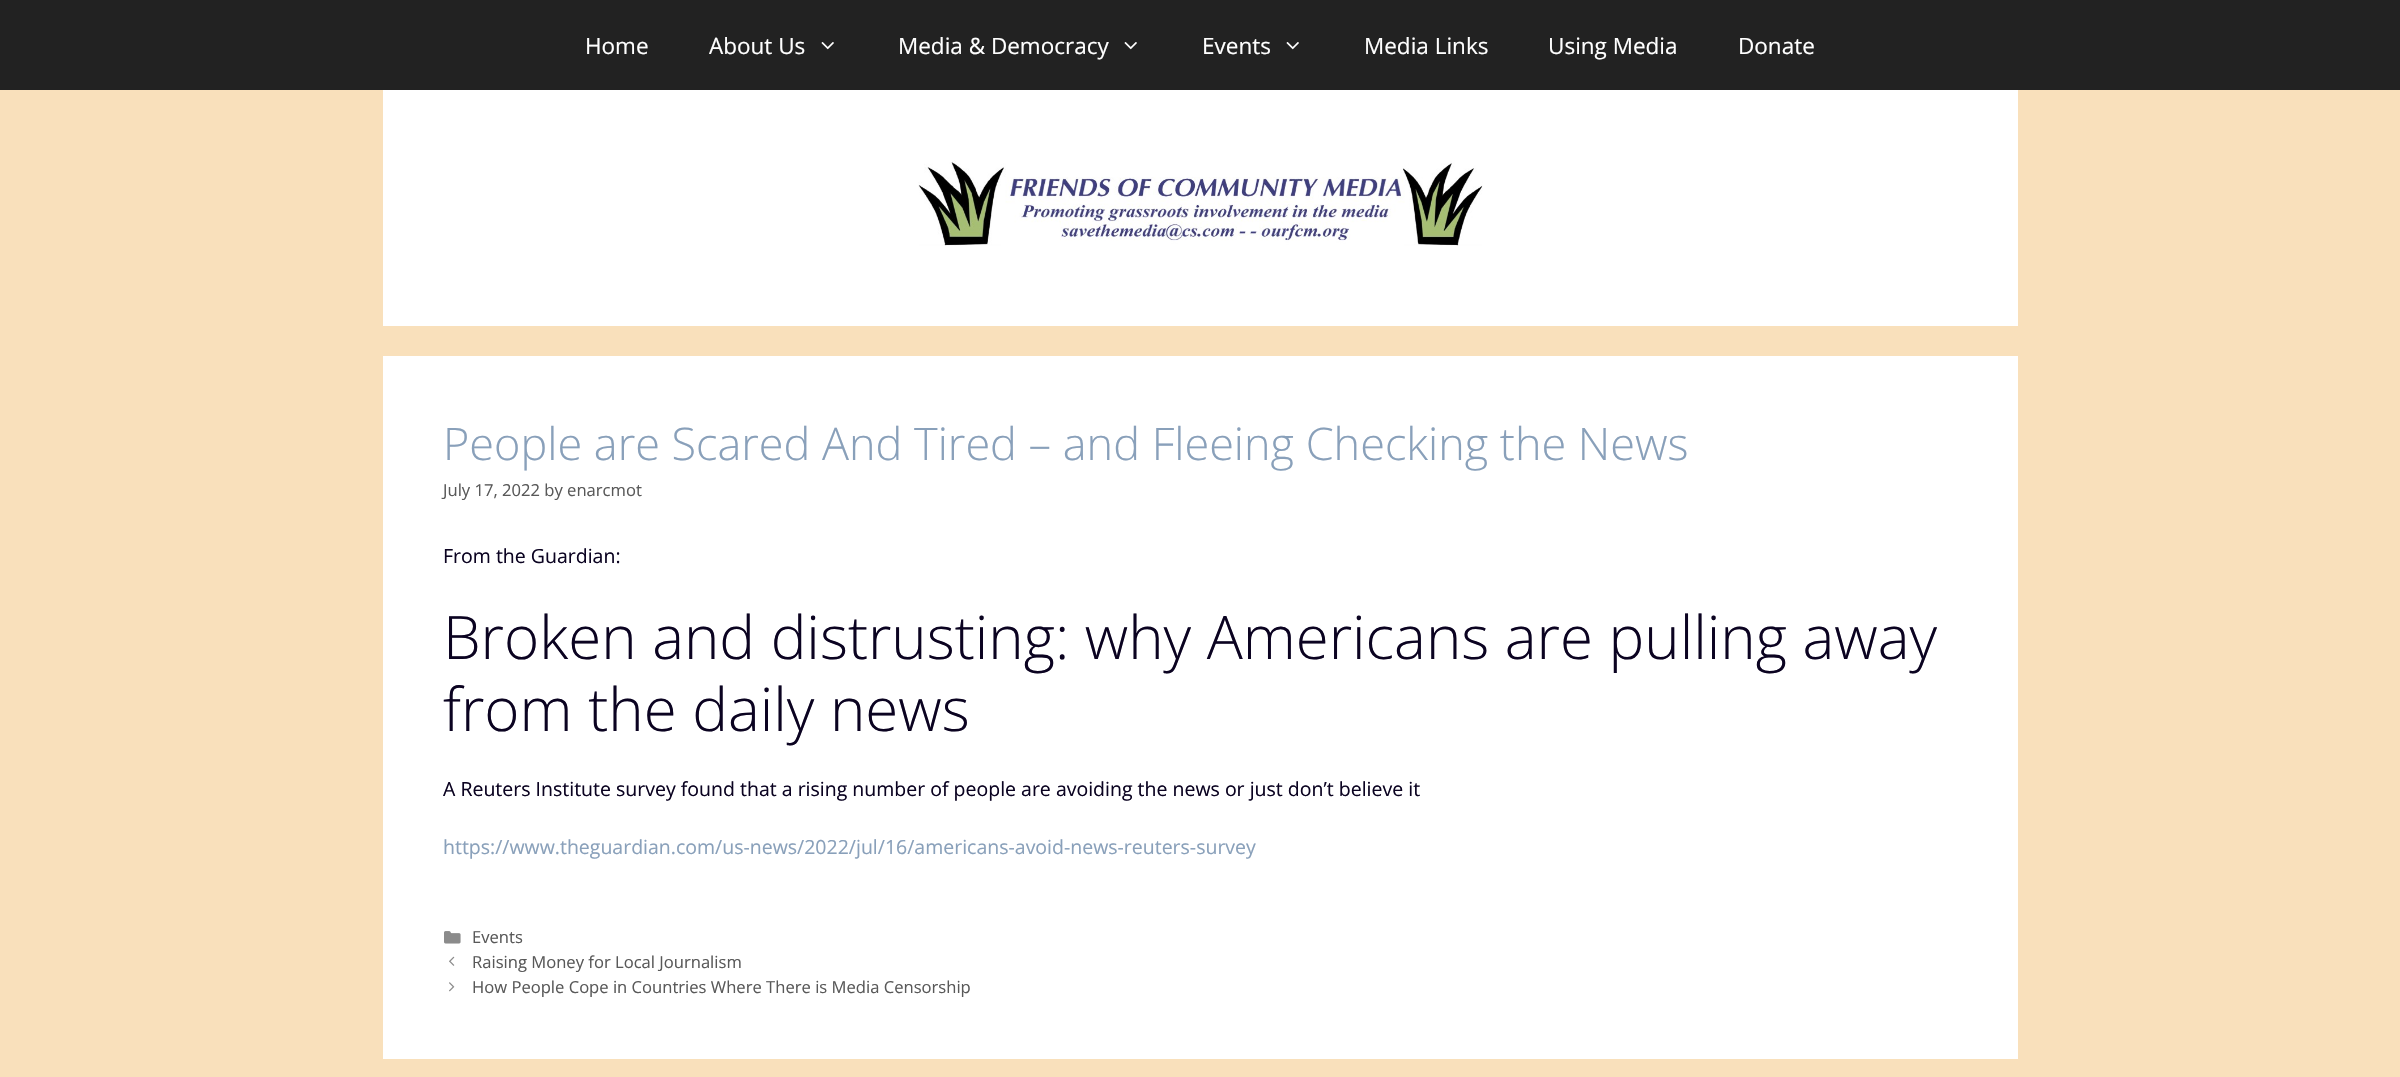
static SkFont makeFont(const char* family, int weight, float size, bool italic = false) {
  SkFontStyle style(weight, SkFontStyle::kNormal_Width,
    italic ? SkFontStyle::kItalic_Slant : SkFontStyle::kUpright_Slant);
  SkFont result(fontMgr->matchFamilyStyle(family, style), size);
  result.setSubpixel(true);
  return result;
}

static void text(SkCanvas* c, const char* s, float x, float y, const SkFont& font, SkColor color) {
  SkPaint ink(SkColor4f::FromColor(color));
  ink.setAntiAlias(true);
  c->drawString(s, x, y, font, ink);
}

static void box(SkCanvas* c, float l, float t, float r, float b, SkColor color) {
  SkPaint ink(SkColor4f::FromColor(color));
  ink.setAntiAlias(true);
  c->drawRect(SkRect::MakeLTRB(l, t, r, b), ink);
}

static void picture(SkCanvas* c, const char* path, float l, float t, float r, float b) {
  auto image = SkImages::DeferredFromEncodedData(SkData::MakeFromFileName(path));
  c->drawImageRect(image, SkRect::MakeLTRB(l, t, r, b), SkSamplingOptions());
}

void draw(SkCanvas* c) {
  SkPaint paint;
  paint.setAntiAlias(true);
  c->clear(0xfff9e0bb);
  box(c, 0, 0, 2400, 90, 0xff222222);
  SkFont face1 = makeFont("Open Sans", 400, 22.5f);
  text(c, "Home", 585, 54, face1, 0xffffffff);
  text(c, "About Us", 709, 54, face1, 0xffffffff);
  picture(c, "img_01.png", 821, 42, 834, 50);
  text(c, "Media & Democracy", 898, 54, face1, 0xffffffff);
  picture(c, "img_01.png", 1124, 42, 1137, 50);
  text(c, "Events", 1202, 54, face1, 0xffffffff);
  picture(c, "img_01.png", 1286, 42, 1299, 50);
  text(c, "Media Links", 1364, 54, face1, 0xffffffff);
  text(c, "Using Media", 1548, 54, face1, 0xffffffff);
  text(c, "Donate", 1738, 54, face1, 0xffffffff);
  box(c, 383, 90, 2018, 326, 0xffffffff);
  picture(c, "img_02.png", 918, 160, 1483, 246);
  box(c, 383, 356, 2018, 1059, 0xffffffff);
  SkFont face2 = makeFont("Open Sans", 300, 45);
  text(c, "People are Scared And Tired – and Fleeing Checking the News", 443, 460, face2, 0xff89a0ba);
  SkFont face3 = makeFont("Open Sans", 400, 16.6f);
  text(c, "July 17, 2022 by enarcmot", 443, 496, face3, 0xff595959);
  SkFont face4 = makeFont("Open Sans", 400, 19.5f);
  text(c, "From the Guardian:", 443, 563, face4, 0xff0b0321);
  SkFont face5 = makeFont("Open Sans", 300, 60);
  text(c, "Broken and distrusting: why Americans are pulling away", 443, 659, face5, 0xff0b0321);
  text(c, "from the daily news", 443, 731, face5, 0xff0b0321);
  text(c, "A Reuters Institute survey found that a rising number of people are avoiding the news or just don’t believe it", 443, 796, face4, 0xff0b0321);
  text(c, "https://www.theguardian.com/us-news/2022/jul/16/americans-avoid-news-reuters-survey", 443, 854, face4, 0xff89a0ba);
  picture(c, "img_03.png", 444, 931, 461, 944);
  text(c, "Events", 472, 943, face3, 0xff595959);
  picture(c, "img_04.png", 449, 956, 455, 966);
  text(c, "Raising Money for Local Journalism", 472, 968, face3, 0xff595959);
  picture(c, "img_05.png", 449, 982, 455, 992);
  text(c, "How People Cope in Countries Where There is Media Censorship", 472, 993, face3, 0xff595959);
}
